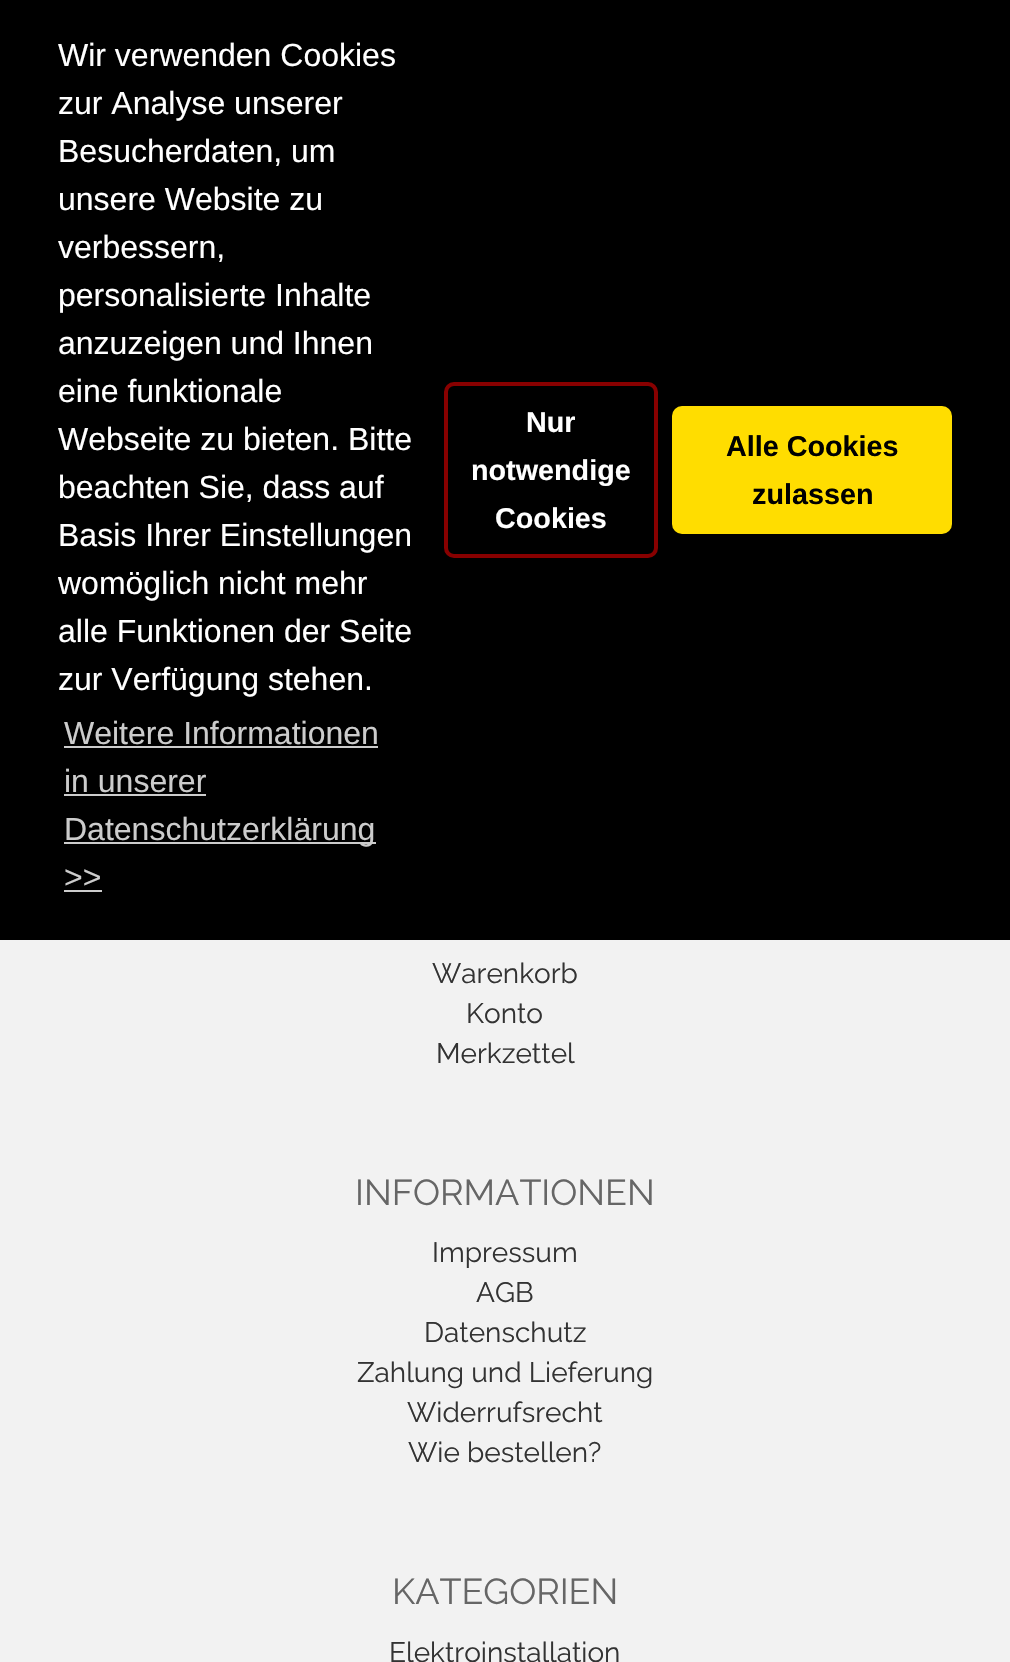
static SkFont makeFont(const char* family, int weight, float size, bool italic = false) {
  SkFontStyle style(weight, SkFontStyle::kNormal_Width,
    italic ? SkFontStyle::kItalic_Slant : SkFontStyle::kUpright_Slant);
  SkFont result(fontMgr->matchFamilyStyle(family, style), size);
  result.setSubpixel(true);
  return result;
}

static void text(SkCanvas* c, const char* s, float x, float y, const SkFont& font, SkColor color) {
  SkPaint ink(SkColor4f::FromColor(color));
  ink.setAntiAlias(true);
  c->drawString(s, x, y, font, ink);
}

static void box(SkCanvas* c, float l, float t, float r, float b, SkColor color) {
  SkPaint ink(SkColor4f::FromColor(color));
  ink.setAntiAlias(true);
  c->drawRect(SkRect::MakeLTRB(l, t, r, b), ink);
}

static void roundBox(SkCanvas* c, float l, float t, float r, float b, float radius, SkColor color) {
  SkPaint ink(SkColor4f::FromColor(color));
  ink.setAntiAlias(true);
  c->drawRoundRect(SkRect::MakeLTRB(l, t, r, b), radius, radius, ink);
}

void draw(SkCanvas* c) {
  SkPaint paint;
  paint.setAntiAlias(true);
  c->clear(0xfff2f2f2);
  box(c, 0, 0, 1010, 940, 0xff000000);
  SkFont face1 = makeFont("Liberation Sans", 400, 32);
  text(c, "Wir verwenden Cookies", 58, 66, face1, 0xffffffff);
  text(c, "zur Analyse unserer", 58, 114, face1, 0xffffffff);
  text(c, "Besucherdaten, um", 58, 162, face1, 0xffffffff);
  text(c, "unsere Website zu", 58, 210, face1, 0xffffffff);
  text(c, "verbessern,", 58, 258, face1, 0xffffffff);
  text(c, "personalisierte Inhalte", 58, 306, face1, 0xffffffff);
  text(c, "anzuzeigen und Ihnen", 58, 354, face1, 0xffffffff);
  text(c, "eine funktionale", 58, 402, face1, 0xffffffff);
  text(c, "Webseite zu bieten. Bitte", 58, 450, face1, 0xffffffff);
  text(c, "beachten Sie, dass auf", 58, 498, face1, 0xffffffff);
  text(c, "Basis Ihrer Einstellungen", 58, 546, face1, 0xffffffff);
  text(c, "womöglich nicht mehr", 58, 594, face1, 0xffffffff);
  text(c, "alle Funktionen der Seite", 58, 642, face1, 0xffffffff);
  text(c, "zur Verfügung stehen.", 58, 690, face1, 0xffffffff);
  text(c, "Weitere Informationen", 64, 744, face1, 0xffcccccc);
  box(c, 64, 746, 378, 748, 0xffcccccc);
  text(c, "in unserer", 64, 792, face1, 0xffcccccc);
  box(c, 64, 794, 206, 796, 0xffcccccc);
  box(c, 64, 842, 376, 844, 0xffcccccc);
  text(c, "Datenschutzerklärung", 64, 840, face1, 0xffcccccc);
  text(c, ">>", 64, 888, face1, 0xffcccccc);
  box(c, 64, 890, 102, 892, 0xffcccccc);
  paint.setStyle(SkPaint::kStroke_Style);
  paint.setStrokeWidth(4);
  paint.setColor(0xff880000);
  c->drawRoundRect(SkRect::MakeLTRB(446, 384, 656, 556), 8, 8, paint);
  SkFont face2 = makeFont("Liberation Sans", 700, 28.75f);
  text(c, "Nur", 526, 432, face2, 0xffffffff);
  text(c, "notwendige", 471, 480, face2, 0xffffffff);
  text(c, "Cookies", 495, 528, face2, 0xffffffff);
  roundBox(c, 672, 406, 952, 534, 10, 0xffffdd00);
  text(c, "Alle Cookies", 726, 456, face2, 0xff000000);
  text(c, "zulassen", 752, 504, face2, 0xff000000);
  SkFont face3 = makeFont("Raleway", 100, 28);
  text(c, "Warenkorb", 432, 983, face3, 0xff333333);
  text(c, "Konto", 466, 1023, face3, 0xff333333);
  text(c, "Merkzettel", 436, 1063, face3, 0xff333333);
  SkFont face4 = makeFont("Raleway", 100, 36);
  text(c, "INFORMATIONEN", 355, 1205, face4, 0xff666666);
  text(c, "Impressum", 432, 1262, face3, 0xff333333);
  text(c, "AGB", 476, 1302, face3, 0xff333333);
  text(c, "Datenschutz", 424, 1342, face3, 0xff333333);
  text(c, "Zahlung und Lieferung", 357, 1382, face3, 0xff333333);
  text(c, "Widerrufsrecht", 407, 1422, face3, 0xff333333);
  text(c, "Wie bestellen?", 408, 1462, face3, 0xff333333);
  text(c, "KATEGORIEN", 392, 1604, face4, 0xff666666);
  text(c, "Elektroinstallation", 389, 1662, face3, 0xff333333);
}
